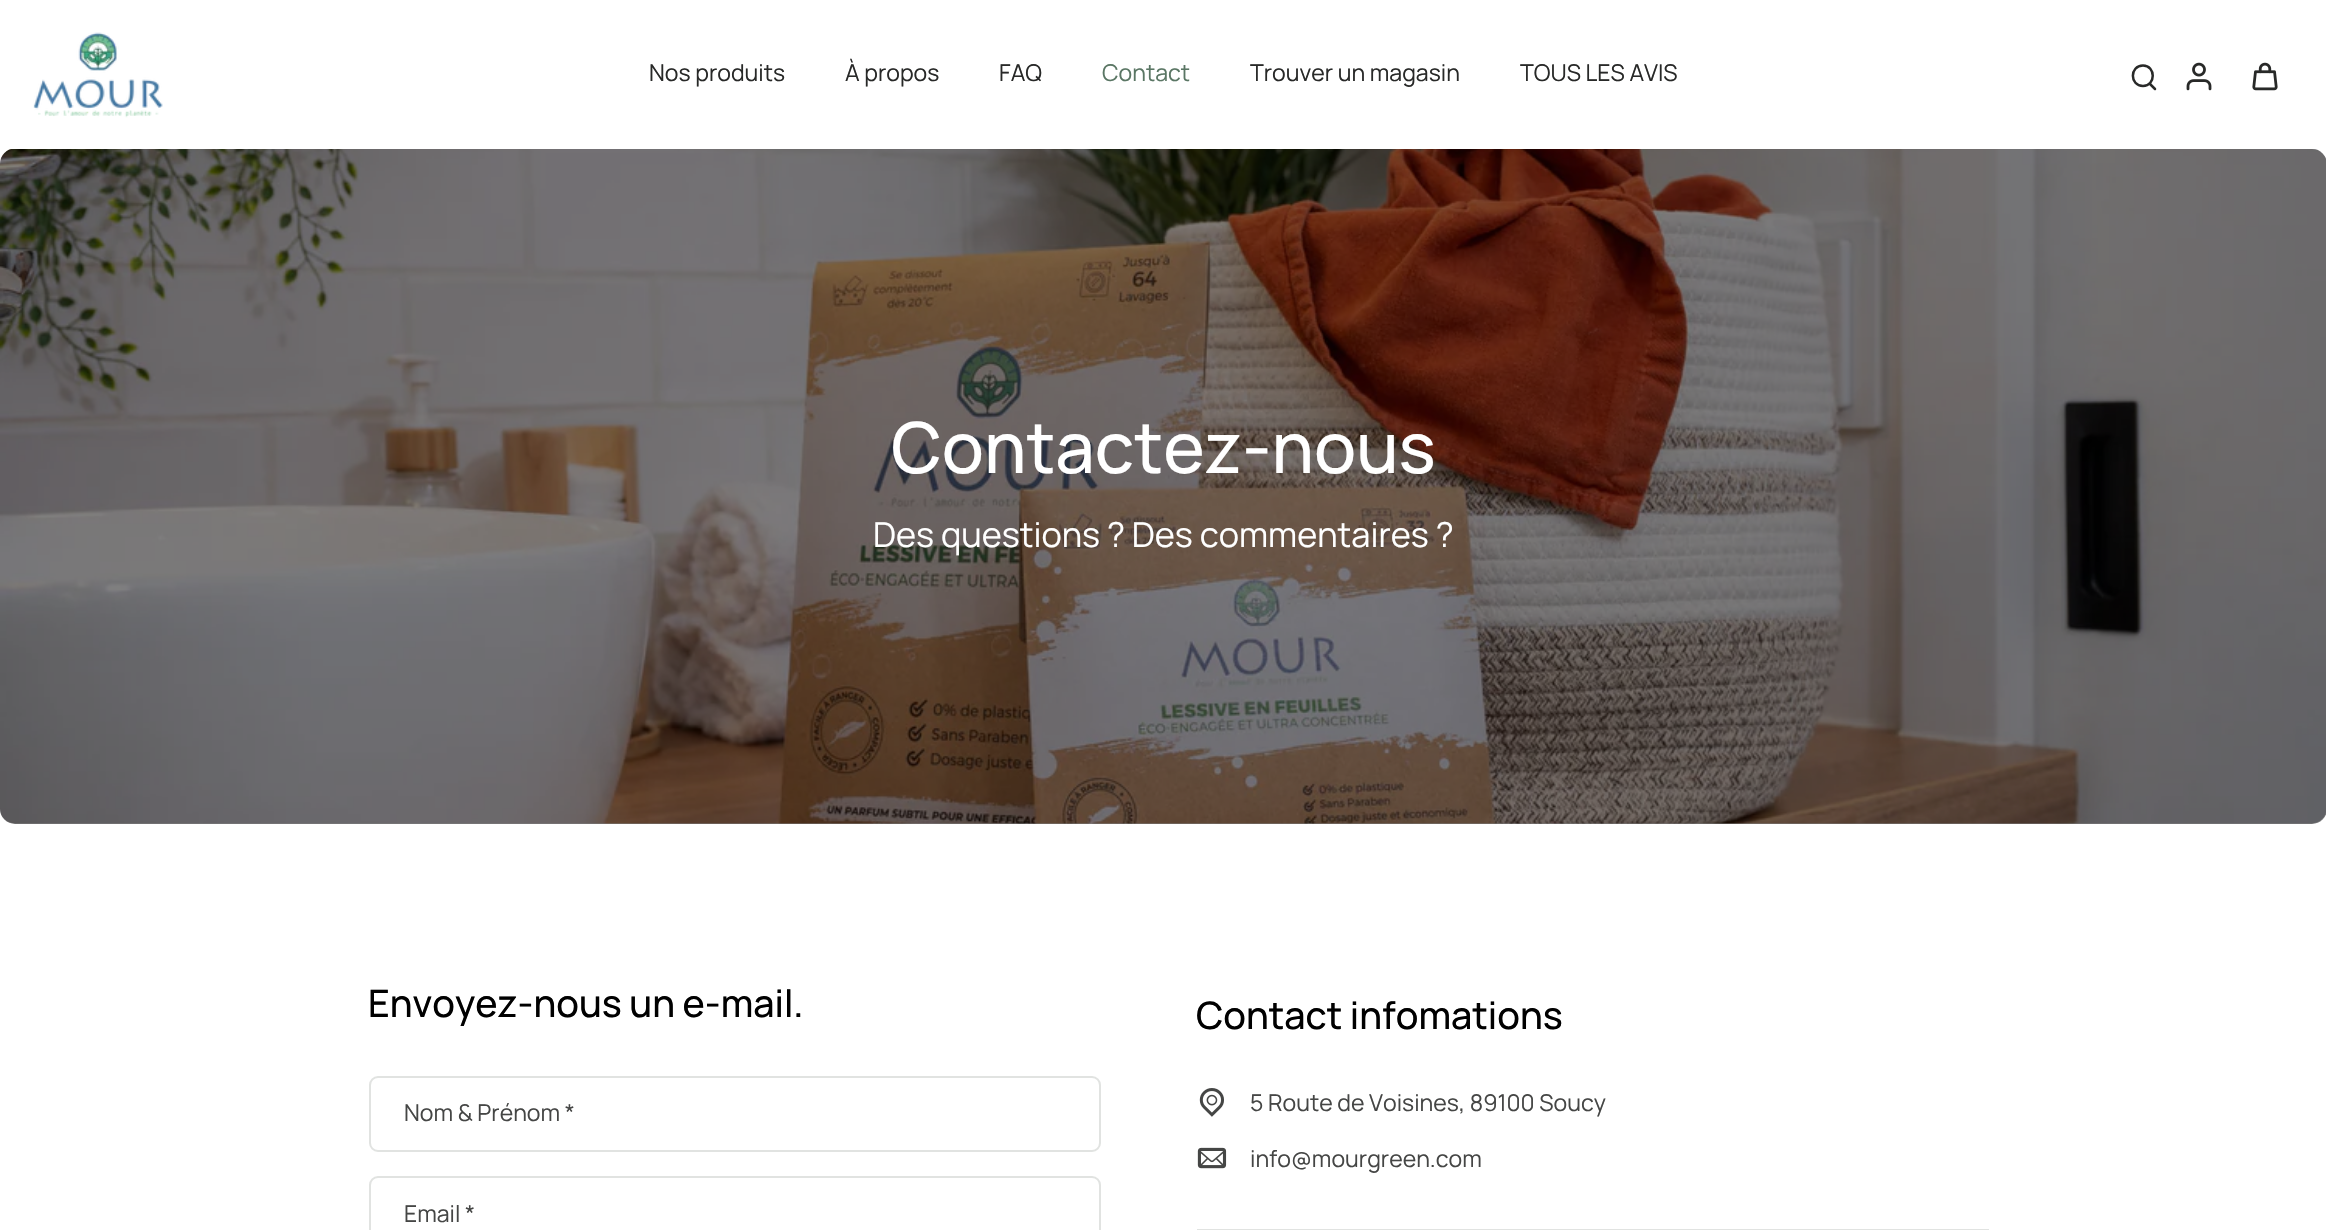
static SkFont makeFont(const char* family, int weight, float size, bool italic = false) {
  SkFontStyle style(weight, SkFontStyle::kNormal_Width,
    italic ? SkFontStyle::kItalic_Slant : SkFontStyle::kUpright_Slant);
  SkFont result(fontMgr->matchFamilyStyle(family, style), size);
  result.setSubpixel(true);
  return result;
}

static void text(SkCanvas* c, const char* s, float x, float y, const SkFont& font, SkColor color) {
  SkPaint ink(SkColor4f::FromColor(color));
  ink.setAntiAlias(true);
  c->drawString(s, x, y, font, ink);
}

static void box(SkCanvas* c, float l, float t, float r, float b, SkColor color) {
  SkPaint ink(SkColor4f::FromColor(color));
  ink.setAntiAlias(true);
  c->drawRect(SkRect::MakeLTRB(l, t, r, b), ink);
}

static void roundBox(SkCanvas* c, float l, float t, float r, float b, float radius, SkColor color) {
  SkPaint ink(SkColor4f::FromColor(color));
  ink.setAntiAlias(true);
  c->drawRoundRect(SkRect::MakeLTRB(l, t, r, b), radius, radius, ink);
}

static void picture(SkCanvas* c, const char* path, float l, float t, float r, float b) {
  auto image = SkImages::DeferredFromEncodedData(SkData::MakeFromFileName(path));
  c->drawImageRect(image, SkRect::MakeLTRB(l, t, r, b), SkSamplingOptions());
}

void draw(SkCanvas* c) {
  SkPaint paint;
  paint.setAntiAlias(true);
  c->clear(0xffffffff);
  picture(c, "img_01.png", 33, 32, 163, 118);
  SkFont face1 = makeFont("Manrope", 400, 23.1f);
  text(c, "Nos produits", 649, 81, face1, 0xff282928);
  text(c, "À propos", 845, 81, face1, 0xff282928);
  text(c, "FAQ", 999, 81, face1, 0xff282928);
  text(c, "Contact", 1102, 81, face1, 0xff5a7664);
  text(c, "Trouver un magasin", 1250, 81, face1, 0xff282928);
  text(c, "TOUS LES AVIS", 1520, 81, face1, 0xff282928);
  paint.setStyle(SkPaint::kStroke_Style);
  paint.setStrokeWidth(2.5f);
  paint.setColor(0xff282928);
  c->drawPath(SkPathBuilder().moveTo(2143, 86).cubicTo(2156, 86, 2156, 65.5f, 2143, 65.5f).cubicTo(2129.5f, 65.5f, 2129.5f, 86, 2143, 86).close().detach(), paint);
  paint.setStrokeCap(SkPaint::kRound_Cap);
  c->drawPath(SkPathBuilder().moveTo(2150, 84).lineTo(2155, 89).detach(), paint);
  picture(c, "img_02.png", 2186, 62, 2212, 91);
  picture(c, "img_03.png", 2252, 62, 2278, 91);
  picture(c, "img_04.png", 0, 149, 2326, 824);
  roundBox(c, 0, 149, 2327, 824, 15, 0x80000000);
  SkFont face2 = makeFont("Manrope", 500, 70.25f);
  text(c, "Contactez-nous", 891, 473, face2, 0xffffffff);
  SkFont face3 = makeFont("Manrope", 400, 34.3f);
  text(c, "Des questions ? Des commentaires ?", 873, 547, face3, 0xffffffff);
  SkFont face4 = makeFont("Manrope", 500, 37.75f);
  text(c, "Envoyez-nous un e-mail.", 368, 1017, face4, 0xff000000);
  paint.setStrokeWidth(2);
  paint.setStrokeCap(SkPaint::kButt_Cap);
  paint.setColor(0xffe1e3e1);
  c->drawRoundRect(SkRect::MakeLTRB(370, 1077, 1100, 1151), 8, 8, paint);
  text(c, "Nom & Prénom *", 404, 1121, face1, 0xff454645);
  c->drawRoundRect(SkRect::MakeLTRB(370, 1177, 1100, 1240), 8, 8, paint);
  text(c, "Email *", 404, 1222, face1, 0xff454645);
  text(c, "Contact infomations", 1196, 1029, face4, 0xff000000);
  picture(c, "img_05.png", 1199, 1088, 1224, 1117);
  text(c, "5 Route de Voisines, 89100 Soucy", 1250, 1111, face1, 0xff454645);
  picture(c, "img_06.png", 1197, 1147, 1227, 1169);
  text(c, "info@mourgreen.com", 1250, 1167, face1, 0xff454645);
  box(c, 1197, 1229, 1989, 1230, 0xffe1e3e1);
}
